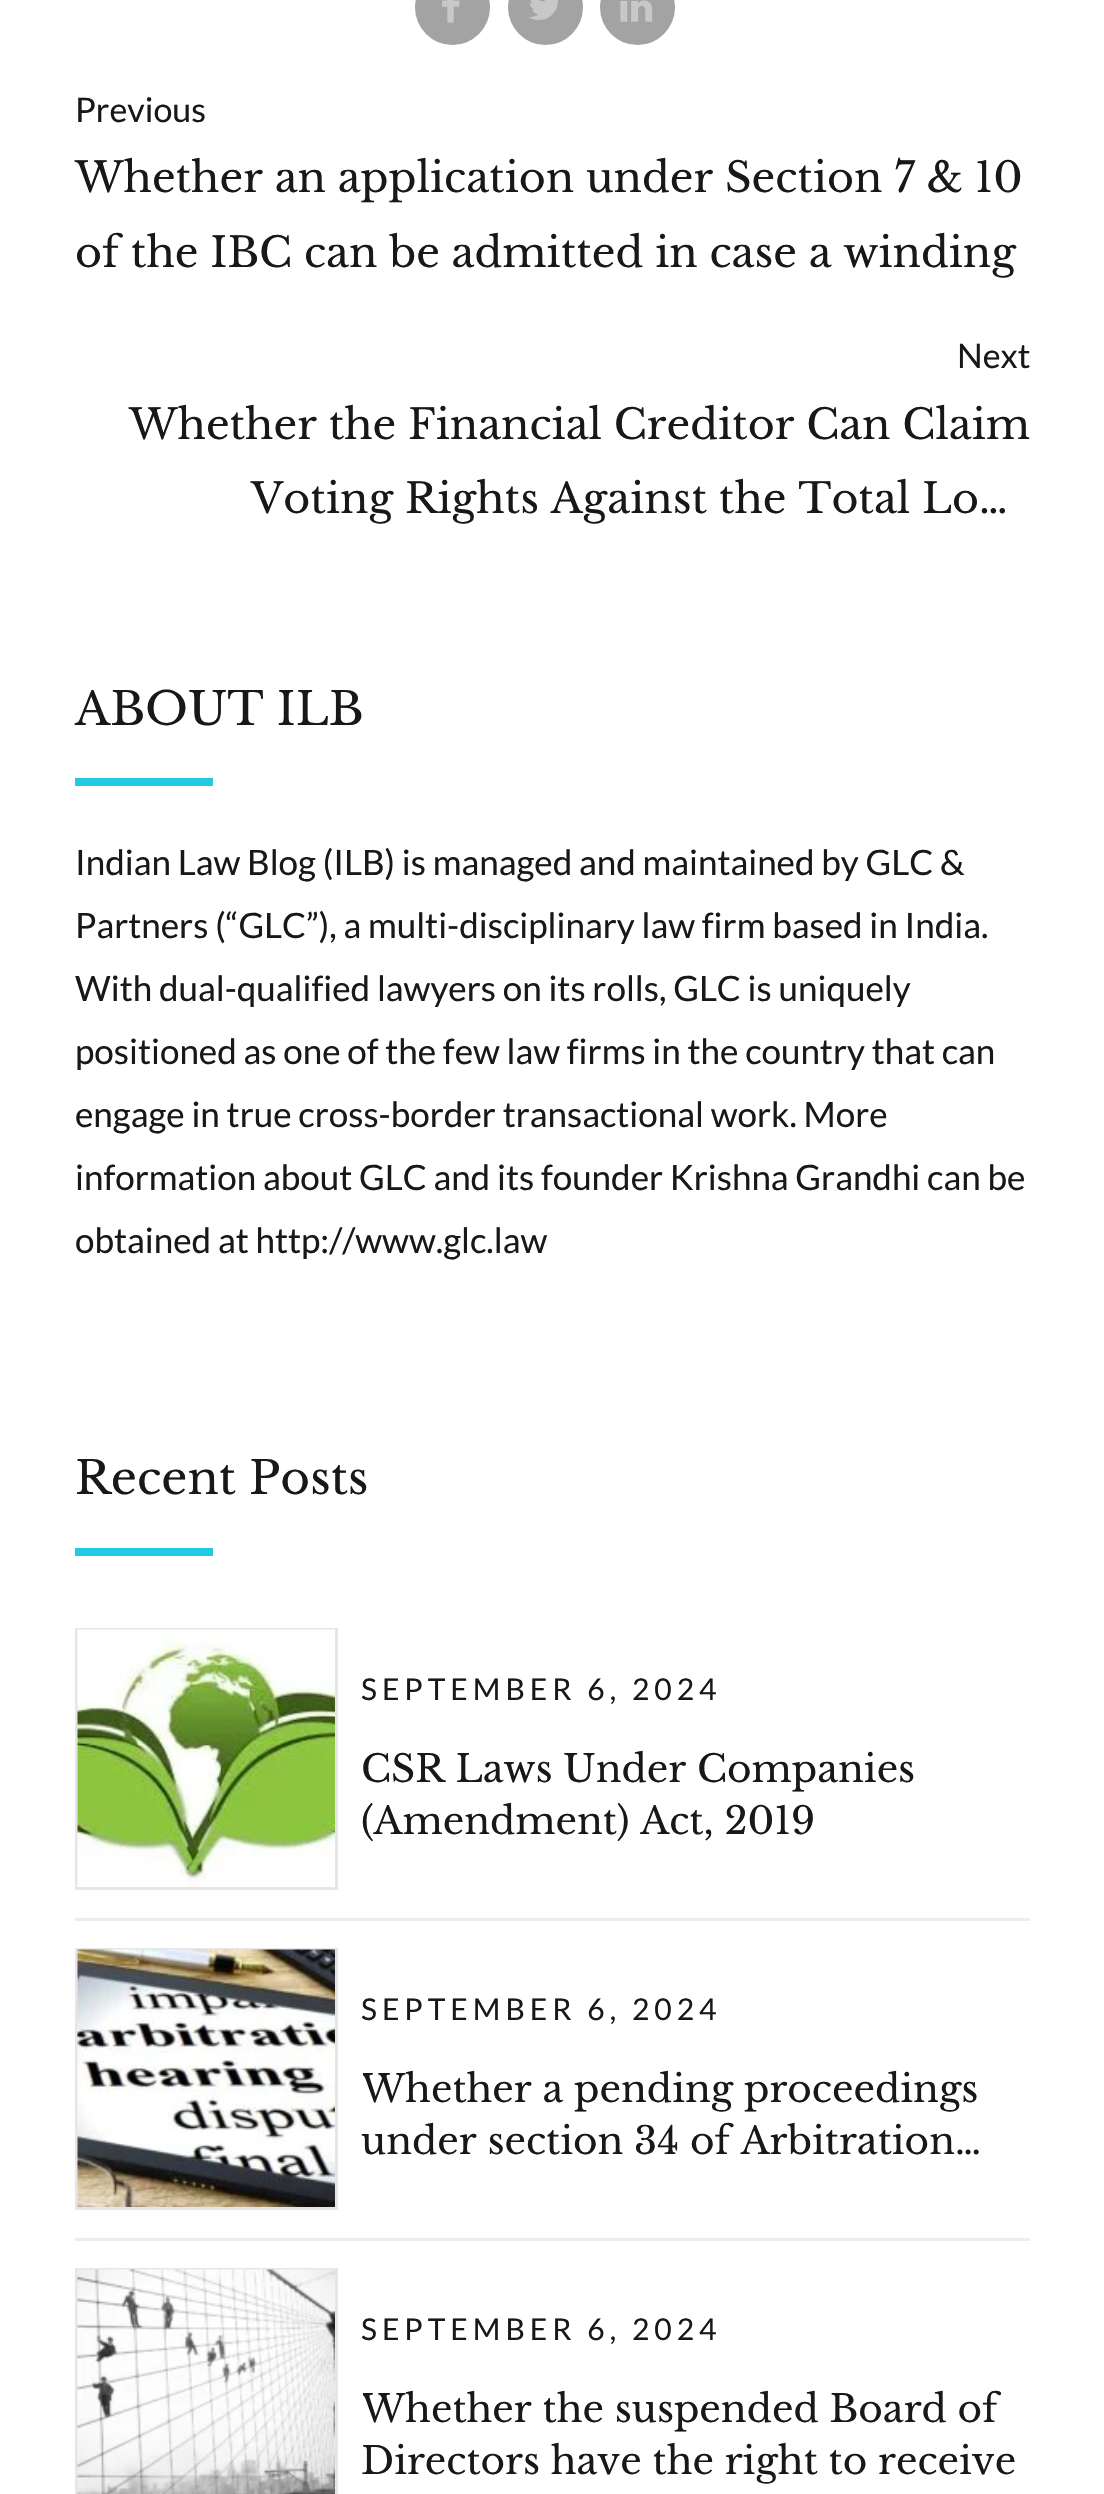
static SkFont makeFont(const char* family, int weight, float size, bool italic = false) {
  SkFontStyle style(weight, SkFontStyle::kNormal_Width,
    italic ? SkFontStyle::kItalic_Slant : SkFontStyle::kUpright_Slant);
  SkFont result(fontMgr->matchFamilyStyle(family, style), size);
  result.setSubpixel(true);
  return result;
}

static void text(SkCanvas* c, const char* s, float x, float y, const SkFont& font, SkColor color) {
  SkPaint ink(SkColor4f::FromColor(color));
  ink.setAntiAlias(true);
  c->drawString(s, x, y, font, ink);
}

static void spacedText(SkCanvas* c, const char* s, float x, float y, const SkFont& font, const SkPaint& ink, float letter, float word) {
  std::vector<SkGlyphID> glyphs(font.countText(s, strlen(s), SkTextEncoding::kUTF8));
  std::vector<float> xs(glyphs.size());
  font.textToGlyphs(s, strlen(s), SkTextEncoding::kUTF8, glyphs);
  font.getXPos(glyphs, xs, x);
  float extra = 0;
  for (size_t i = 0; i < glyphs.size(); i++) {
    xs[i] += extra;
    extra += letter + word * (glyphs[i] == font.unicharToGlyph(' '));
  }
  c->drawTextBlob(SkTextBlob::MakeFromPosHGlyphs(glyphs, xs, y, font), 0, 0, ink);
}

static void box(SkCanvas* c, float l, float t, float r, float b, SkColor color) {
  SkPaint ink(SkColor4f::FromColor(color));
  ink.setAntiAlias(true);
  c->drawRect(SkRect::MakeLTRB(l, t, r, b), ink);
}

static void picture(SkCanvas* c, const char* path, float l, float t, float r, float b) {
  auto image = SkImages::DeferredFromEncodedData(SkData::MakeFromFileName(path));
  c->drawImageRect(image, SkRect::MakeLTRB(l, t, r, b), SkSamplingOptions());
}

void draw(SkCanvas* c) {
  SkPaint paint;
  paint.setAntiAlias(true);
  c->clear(0xffffffff);
  paint.setColor(0xffa3a3a3);
  c->drawCircle(452.5f, 7.5f, 37.5f, paint);
  picture(c, "img_01.png", 442, 0, 460, 23);
  c->drawCircle(545.5f, 7.5f, 37.5f, paint);
  picture(c, "img_02.png", 529, 0, 558, 20);
  c->drawCircle(637.5f, 7.5f, 37.5f, paint);
  picture(c, "img_03.png", 620, 0, 653, 22);
  SkFont face1 = makeFont("Lato", 400, 34);
  text(c, "Previous", 75, 122, face1, 0xff181818);
  SkFont face2 = makeFont("Libre Baskerville", 400, 41.25f);
  text(c, "Whether an application under Section 7 & 10", 75, 192, face2, 0xff181818);
  text(c, "of the IBC can be admitted in case a winding", 75, 267, face2, 0xff181818);
  text(c, "Next", 957, 368, face1, 0xff181818);
  text(c, "Whether the Financial Creditor Can Claim", 129, 439, face2, 0xff181818);
  text(c, "Voting Rights Against the Total Lo…", 251, 513, face2, 0xff181818);
  SkFont face3 = makeFont("Libre Baskerville", 400, 45.5f);
  text(c, "ABOUT ILB", 75, 725, face3, 0xff181818);
  box(c, 75, 778, 213, 786, 0xff24cae2);
  SkFont face4 = makeFont("Lato", 400, 35);
  text(c, "Indian Law Blog (ILB) is managed and maintained by GLC &", 75, 875, face4, 0xff181818);
  text(c, "Partners (“GLC”), a multi-disciplinary law firm based in India.", 75, 938, face4, 0xff181818);
  text(c, "With dual-qualified lawyers on its rolls, GLC is uniquely", 75, 1001, face4, 0xff181818);
  text(c, "positioned as one of the few law firms in the country that can", 75, 1064, face4, 0xff181818);
  text(c, "engage in true cross-border transactional work. More", 75, 1127, face4, 0xff181818);
  text(c, "information about GLC and its founder Krishna Grandhi can be", 75, 1190, face4, 0xff181818);
  text(c, "obtained at http://www.glc.law", 75, 1253, face4, 0xff181818);
  text(c, "Recent Posts", 75, 1494, face3, 0xff181818);
  box(c, 75, 1548, 213, 1556, 0xff24cae2);
  box(c, 75, 1918, 1030, 1921, 0xffededed);
  paint.setStyle(SkPaint::kStroke_Style);
  paint.setStrokeWidth(3);
  paint.setColor(0xffe6e6e6);
  c->drawRect(SkRect::MakeLTRB(76.5f, 1629.5f, 336.5f, 1888.5f), paint);
  picture(c, "img_04.png", 77, 1629, 335, 1887);
  SkFont face5 = makeFont("Lato", 400, 30);
  paint.setStyle(SkPaint::kFill_Style);
  paint.setColor(0xff181818);
  spacedText(c, "SEPTEMBER 6, 2024", 361, 1700, face5, paint, 5, 0);
  SkFont face6 = makeFont("Libre Baskerville", 400, 37.5f);
  text(c, "CSR Laws Under Companies", 361, 1782, face6, 0xff181818);
  text(c, "(Amendment) Act, 2019", 361, 1834, face6, 0xff181818);
  box(c, 75, 2238, 1030, 2241, 0xffededed);
  paint.setStyle(SkPaint::kStroke_Style);
  paint.setColor(0xffe6e6e6);
  c->drawRect(SkRect::MakeLTRB(76.5f, 1949.5f, 336.5f, 2208.5f), paint);
  picture(c, "img_05.png", 77, 1949, 335, 2207);
  paint.setStyle(SkPaint::kFill_Style);
  paint.setColor(0xff181818);
  spacedText(c, "SEPTEMBER 6, 2024", 361, 2020, face5, paint, 5, 0);
  c->save();
  c->clipRect(SkRect::MakeLTRB(363, 2063, 1030, 2168));
  text(c, "Whether a pending proceedings", 361, 2102, face6, 0xff181818);
  c->restore();
  text(c, "under section 34 of Arbitration…", 361, 2154, face6, 0xff181818);
  paint.setStyle(SkPaint::kStroke_Style);
  paint.setColor(0xffe6e6e6);
  c->drawRect(SkRect::MakeLTRB(76.5f, 2269.5f, 336.5f, 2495.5f), paint);
  picture(c, "img_06.png", 77, 2269, 335, 2494);
  paint.setStyle(SkPaint::kFill_Style);
  paint.setColor(0xff181818);
  spacedText(c, "SEPTEMBER 6, 2024", 361, 2340, face5, paint, 5, 0);
  c->save();
  c->clipRect(SkRect::MakeLTRB(363, 2383, 1030, 2488));
  text(c, "Whether the suspended Board of", 361, 2422, face6, 0xff181818);
  c->restore();
  text(c, "Directors have the right to receive", 361, 2474, face6, 0xff181818);
}
